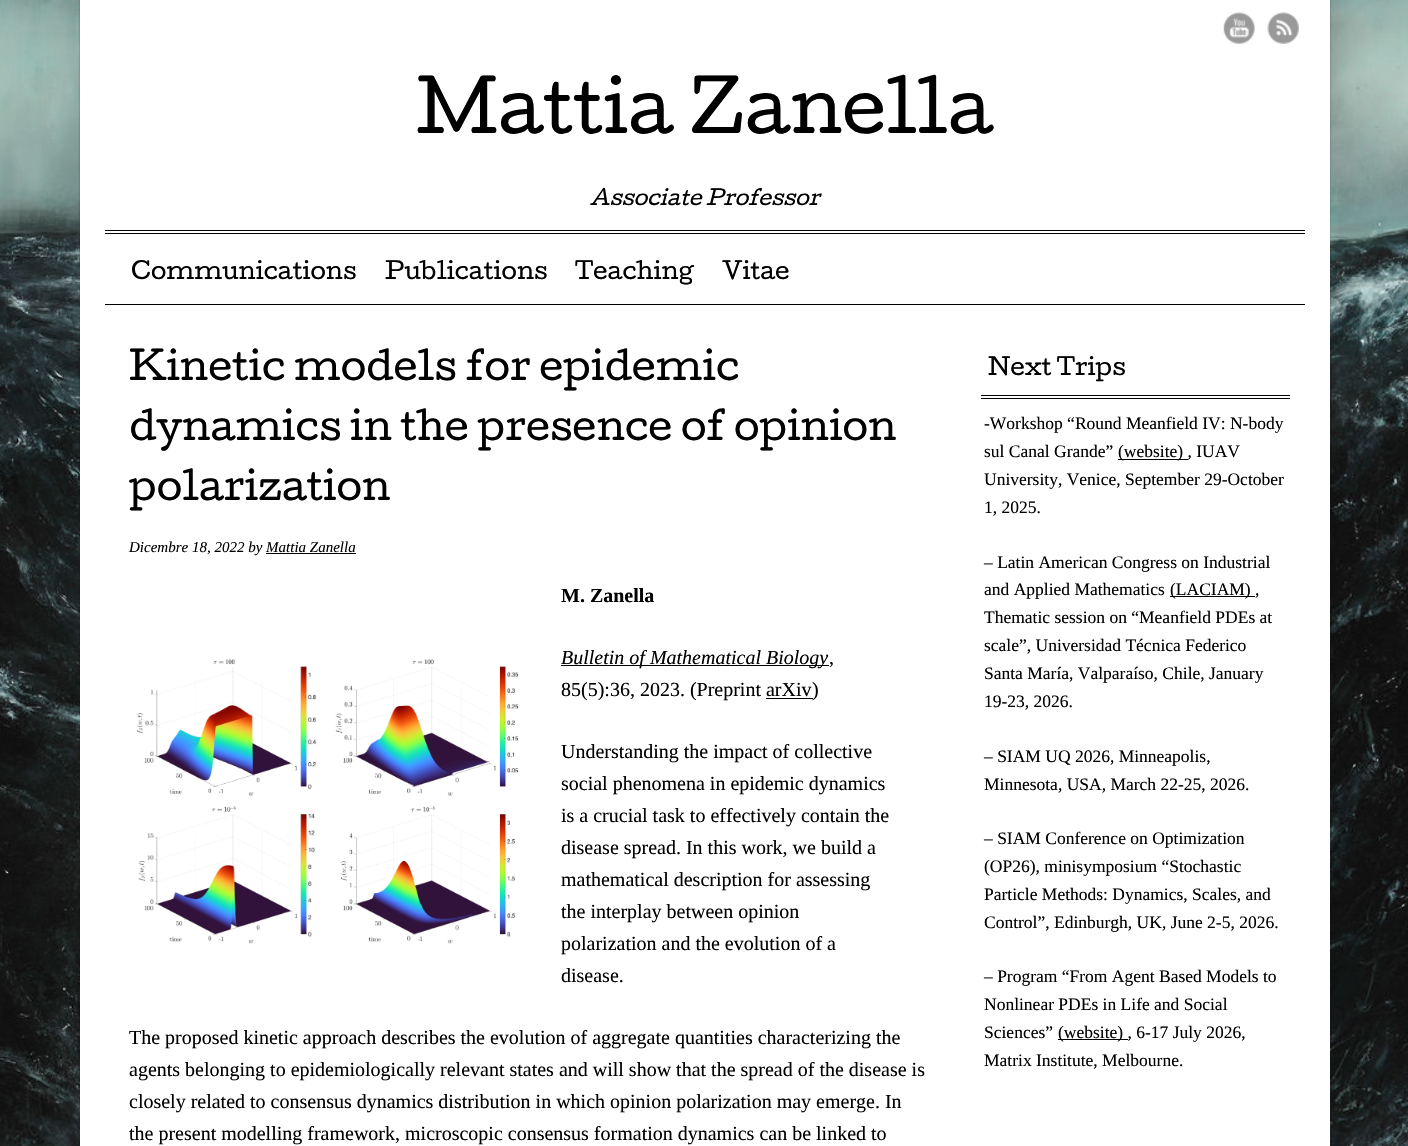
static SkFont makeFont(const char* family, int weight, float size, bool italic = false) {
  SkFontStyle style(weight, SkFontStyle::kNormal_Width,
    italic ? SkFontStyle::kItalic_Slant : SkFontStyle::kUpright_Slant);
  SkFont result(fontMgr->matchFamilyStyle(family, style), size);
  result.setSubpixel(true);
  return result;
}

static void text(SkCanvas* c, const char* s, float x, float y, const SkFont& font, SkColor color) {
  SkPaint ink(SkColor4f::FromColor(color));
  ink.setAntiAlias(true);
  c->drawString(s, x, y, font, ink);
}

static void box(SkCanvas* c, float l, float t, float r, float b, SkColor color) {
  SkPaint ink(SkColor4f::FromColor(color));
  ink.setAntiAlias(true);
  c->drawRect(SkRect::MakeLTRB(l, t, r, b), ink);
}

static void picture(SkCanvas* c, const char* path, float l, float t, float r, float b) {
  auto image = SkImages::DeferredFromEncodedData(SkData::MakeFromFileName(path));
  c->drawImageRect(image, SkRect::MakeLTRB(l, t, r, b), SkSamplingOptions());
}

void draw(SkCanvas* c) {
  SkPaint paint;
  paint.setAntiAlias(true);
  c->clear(0xffffffff);
  picture(c, "img_01.png", 0, 0, 1408, 1146);
  paint.setColor(0x1a000000);
  paint.setMaskFilter(SkMaskFilter::MakeBlur(kNormal_SkBlurStyle, 0.5f));
  c->drawRect(SkRect::MakeLTRB(79, 0, 1331, 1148), paint);
  paint.setMaskFilter(nullptr);
  box(c, 80, 0, 1330, 1146, 0xffffffff);
  box(c, 105, 304, 1305, 305, 0xff000000);
  picture(c, "img_02.png", 1223, 12, 1255, 44);
  picture(c, "img_03.png", 1267, 12, 1299, 44);
  box(c, 105, 230, 1305, 231, 0xff000000);
  box(c, 105, 233, 1305, 234, 0xff000000);
  SkFont face1 = makeFont("Cutive", 400, 68.75f);
  text(c, "Mattia Zanella", 416, 133, face1, 0xff000000);
  SkFont face2 = makeFont("Cutive", 400, 20, true);
  text(c, "Associate Professor", 590, 205, face2, 0xff000000);
  SkFont face3 = makeFont("Cutive", 400, 22.5f);
  text(c, "Communications", 131, 279, face3, 0xff000000);
  text(c, "Publications", 385, 279, face3, 0xff000000);
  text(c, "Teaching", 575, 279, face3, 0xff000000);
  text(c, "Vitae", 722, 279, face3, 0xff000000);
  SkFont face4 = makeFont("Cutive", 400, 37.5f);
  text(c, "Kinetic models for epidemic", 129, 380, face4, 0xff000000);
  text(c, "dynamics in the presence of opinion", 129, 440, face4, 0xff000000);
  text(c, "polarization", 129, 500, face4, 0xff000000);
  SkFont face5 = makeFont("Liberation Serif", 400, 15, true);
  text(c, "Dicembre 18, 2022 by Mattia Zanella", 129, 552, face5, 0xff000000);
  box(c, 266, 553, 356, 554, 0xff000000);
  picture(c, "img_04.png", 136, 659, 519, 944);
  SkFont face6 = makeFont("Liberation Serif", 700, 20);
  text(c, "M. Zanella", 561, 602, face6, 0xff000000);
  box(c, 561, 665, 829, 666, 0xff000000);
  SkFont face7 = makeFont("Liberation Serif", 400, 20, true);
  text(c, "Bulletin of Mathematical Biology", 561, 664, face7, 0xff000000);
  SkFont face8 = makeFont("Liberation Serif", 400, 20);
  text(c, ",", 829, 664, face8, 0xff000000);
  text(c, "85(5):36, 2023. (Preprint arXiv", 561, 696, face8, 0xff000000);
  box(c, 766, 698, 813, 699, 0xff000000);
  text(c, ")", 812, 696, face8, 0xff000000);
  text(c, "Understanding the impact of collective", 561, 758, face8, 0xff000000);
  text(c, "social phenomena in epidemic dynamics", 561, 790, face8, 0xff000000);
  text(c, "is a crucial task to effectively contain the", 561, 822, face8, 0xff000000);
  text(c, "disease spread. In this work, we build a", 561, 854, face8, 0xff000000);
  text(c, "mathematical description for assessing", 561, 886, face8, 0xff000000);
  text(c, "the interplay between opinion", 561, 918, face8, 0xff000000);
  text(c, "polarization and the evolution of a", 561, 950, face8, 0xff000000);
  text(c, "disease.", 561, 982, face8, 0xff000000);
  text(c, "The proposed kinetic approach describes the evolution of aggregate quantities characterizing the", 129, 1044, face8, 0xff000000);
  text(c, "agents belonging to epidemiologically relevant states and will show that the spread of the disease is", 129, 1076, face8, 0xff000000);
  text(c, "closely related to consensus dynamics distribution in which opinion polarization may emerge. In", 129, 1108, face8, 0xff000000);
  text(c, "the present modelling framework, microscopic consensus formation dynamics can be linked to", 129, 1140, face8, 0xff000000);
  box(c, 981, 395, 1290, 396, 0xff000000);
  box(c, 981, 398, 1290, 399, 0xff000000);
  text(c, "Next Trips", 988, 375, face3, 0xff000000);
  SkFont face9 = makeFont("Liberation Serif", 400, 17.5f);
  text(c, "-Workshop “Round Meanfield IV: N-body", 984, 429, face9, 0xff000000);
  text(c, "sul Canal Grande”", 984, 457, face9, 0xff000000);
  box(c, 1118, 459, 1188, 460, 0xff000000);
  text(c, "(website) , IUAV", 1118, 457, face9, 0xff000000);
  text(c, "University, Venice, September 29-October", 984, 485, face9, 0xff000000);
  text(c, "1, 2025.", 984, 513, face9, 0xff000000);
  text(c, "– Latin American Congress on Industrial", 984, 568, face9, 0xff000000);
  text(c, "and Applied Mathematics", 984, 595, face9, 0xff000000);
  box(c, 1170, 596, 1255, 597, 0xff000000);
  text(c, "(LACIAM) ,", 1170, 595, face9, 0xff000000);
  text(c, "Thematic session on “Meanfield PDEs at", 984, 623, face9, 0xff000000);
  text(c, "scale”, Universidad Técnica Federico", 984, 651, face9, 0xff000000);
  text(c, "Santa María, Valparaíso, Chile, January", 984, 679, face9, 0xff000000);
  text(c, "19-23, 2026.", 984, 707, face9, 0xff000000);
  text(c, "– SIAM UQ 2026, Minneapolis,", 984, 762, face9, 0xff000000);
  text(c, "Minnesota, USA, March 22-25, 2026.", 984, 790, face9, 0xff000000);
  text(c, "– SIAM Conference on Optimization", 984, 844, face9, 0xff000000);
  text(c, "(OP26), minisymposium “Stochastic", 984, 872, face9, 0xff000000);
  text(c, "Particle Methods: Dynamics, Scales, and", 984, 900, face9, 0xff000000);
  text(c, "Control”, Edinburgh, UK, June 2-5, 2026.", 984, 928, face9, 0xff000000);
  text(c, "– Program “From Agent Based Models to", 984, 982, face9, 0xff000000);
  text(c, "Nonlinear PDEs in Life and Social", 984, 1010, face9, 0xff000000);
  text(c, "Sciences”", 984, 1038, face9, 0xff000000);
  box(c, 1058, 1039, 1128, 1040, 0xff000000);
  text(c, "(website) , 6-17 July 2026,", 1058, 1038, face9, 0xff000000);
  text(c, "Matrix Institute, Melbourne.", 984, 1066, face9, 0xff000000);
}
